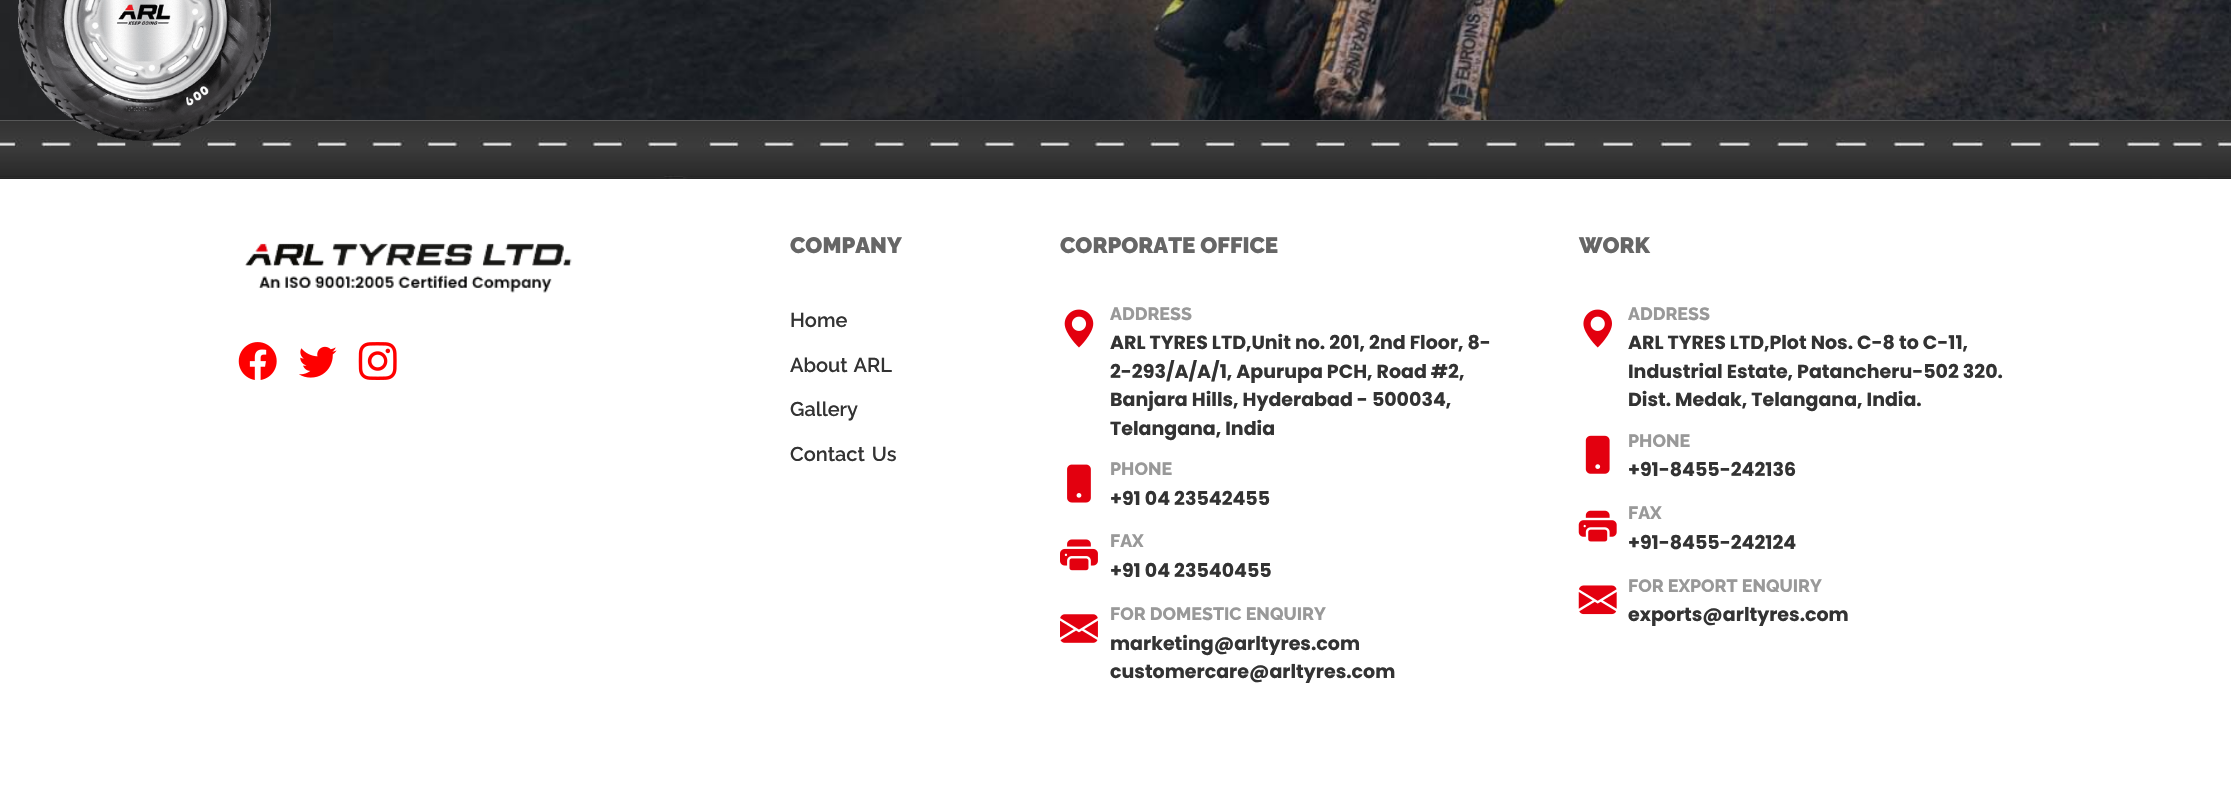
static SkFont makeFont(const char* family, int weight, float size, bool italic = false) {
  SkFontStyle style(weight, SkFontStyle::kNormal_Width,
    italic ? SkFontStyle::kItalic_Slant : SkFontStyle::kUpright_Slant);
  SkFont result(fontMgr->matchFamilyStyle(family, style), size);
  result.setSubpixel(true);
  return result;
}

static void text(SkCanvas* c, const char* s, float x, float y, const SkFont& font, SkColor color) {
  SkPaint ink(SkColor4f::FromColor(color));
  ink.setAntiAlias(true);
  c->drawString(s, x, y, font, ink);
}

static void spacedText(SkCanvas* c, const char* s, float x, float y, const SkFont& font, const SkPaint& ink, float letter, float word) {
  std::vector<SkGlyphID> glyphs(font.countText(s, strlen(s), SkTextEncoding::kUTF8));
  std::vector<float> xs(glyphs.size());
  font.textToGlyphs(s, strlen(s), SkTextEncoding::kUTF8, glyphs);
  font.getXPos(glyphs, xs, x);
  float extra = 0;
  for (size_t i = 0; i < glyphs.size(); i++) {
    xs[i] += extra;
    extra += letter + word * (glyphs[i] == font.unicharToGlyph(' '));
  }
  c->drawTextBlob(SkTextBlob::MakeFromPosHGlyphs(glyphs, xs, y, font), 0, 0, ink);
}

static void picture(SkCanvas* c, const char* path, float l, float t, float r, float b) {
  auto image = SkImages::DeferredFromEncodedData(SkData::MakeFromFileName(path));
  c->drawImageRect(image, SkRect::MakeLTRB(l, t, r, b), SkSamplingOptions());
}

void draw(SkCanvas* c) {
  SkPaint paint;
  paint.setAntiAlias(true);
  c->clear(0xffffffff);
  picture(c, "img_01.png", 0, 0, 2231, 121);
  picture(c, "img_03.png", 0, 120, 2231, 179);
  picture(c, "img_02.png", 18, 0, 271, 141);
  picture(c, "img_04.png", 245, 243, 572, 293);
  picture(c, "img_05.png", 238, 342, 277, 380);
  picture(c, "img_06.png", 299, 346, 337, 378);
  picture(c, "img_07.png", 358, 342, 397, 380);
  SkFont face1 = makeFont("Raleway", 900, 22.25f);
  text(c, "COMPANY", 790, 253, face1, 0xff666666);
  SkFont face2 = makeFont("Raleway", 600, 20);
  text(c, "Home", 790, 327, face2, 0xff333333);
  paint.setColor(0xff333333);
  spacedText(c, "About ARL", 790, 372, face2, paint, 0, 1);
  text(c, "Gallery", 790, 416, face2, 0xff333333);
  spacedText(c, "Contact Us", 790, 461, face2, paint, 0, 2);
  text(c, "CORPORATE OFFICE", 1060, 253, face1, 0xff666666);
  picture(c, "img_08.png", 1064, 309, 1094, 348);
  SkFont face3 = makeFont("Raleway", 800, 17.8f);
  text(c, "ADDRESS", 1110, 320, face3, 0xff999999);
  SkFont face4 = makeFont("Poppins", 700, 19);
  text(c, "ARL TYRES LTD,Unit no. 201, 2nd Floor, 8-", 1110, 349, face4, 0xff333333);
  text(c, "2-293/A/A/1, Apurupa PCH, Road #2,", 1110, 378, face4, 0xff333333);
  text(c, "Banjara Hills, Hyderabad - 500034,", 1110, 406, face4, 0xff333333);
  text(c, "Telangana, India", 1110, 435, face4, 0xff333333);
  picture(c, "img_09.png", 1067, 464, 1091, 503);
  text(c, "PHONE", 1110, 475, face3, 0xff999999);
  text(c, "+91 04 23542455", 1110, 505, face4, 0xff333333);
  picture(c, "img_10.png", 1060, 539, 1098, 571);
  text(c, "FAX", 1110, 547, face3, 0xff999999);
  text(c, "+91 04 23540455", 1110, 577, face4, 0xff333333);
  picture(c, "img_11.png", 1060, 614, 1098, 643);
  text(c, "FOR DOMESTIC ENQUIRY", 1110, 620, face3, 0xff999999);
  text(c, "marketing@arltyres.com", 1110, 650, face4, 0xff333333);
  text(c, "customercare@arltyres.com", 1110, 678, face4, 0xff333333);
  text(c, "WORK", 1579, 253, face1, 0xff666666);
  picture(c, "img_12.png", 1583, 309, 1612, 348);
  text(c, "ADDRESS", 1628, 320, face3, 0xff999999);
  text(c, "ARL TYRES LTD,Plot Nos. C-8 to C-11,", 1628, 349, face4, 0xff333333);
  text(c, "Industrial Estate, Patancheru-502 320.", 1628, 378, face4, 0xff333333);
  text(c, "Dist. Medak, Telangana, India.", 1628, 406, face4, 0xff333333);
  picture(c, "img_13.png", 1585, 435, 1610, 474);
  text(c, "PHONE", 1628, 447, face3, 0xff999999);
  text(c, "+91-8455-242136", 1628, 476, face4, 0xff333333);
  picture(c, "img_14.png", 1578, 510, 1617, 542);
  text(c, "FAX", 1628, 519, face3, 0xff999999);
  text(c, "+91-8455-242124", 1628, 549, face4, 0xff333333);
  picture(c, "img_15.png", 1578, 585, 1617, 615);
  text(c, "FOR EXPORT ENQUIRY", 1628, 592, face3, 0xff999999);
  text(c, "exports@arltyres.com", 1628, 621, face4, 0xff333333);
}
